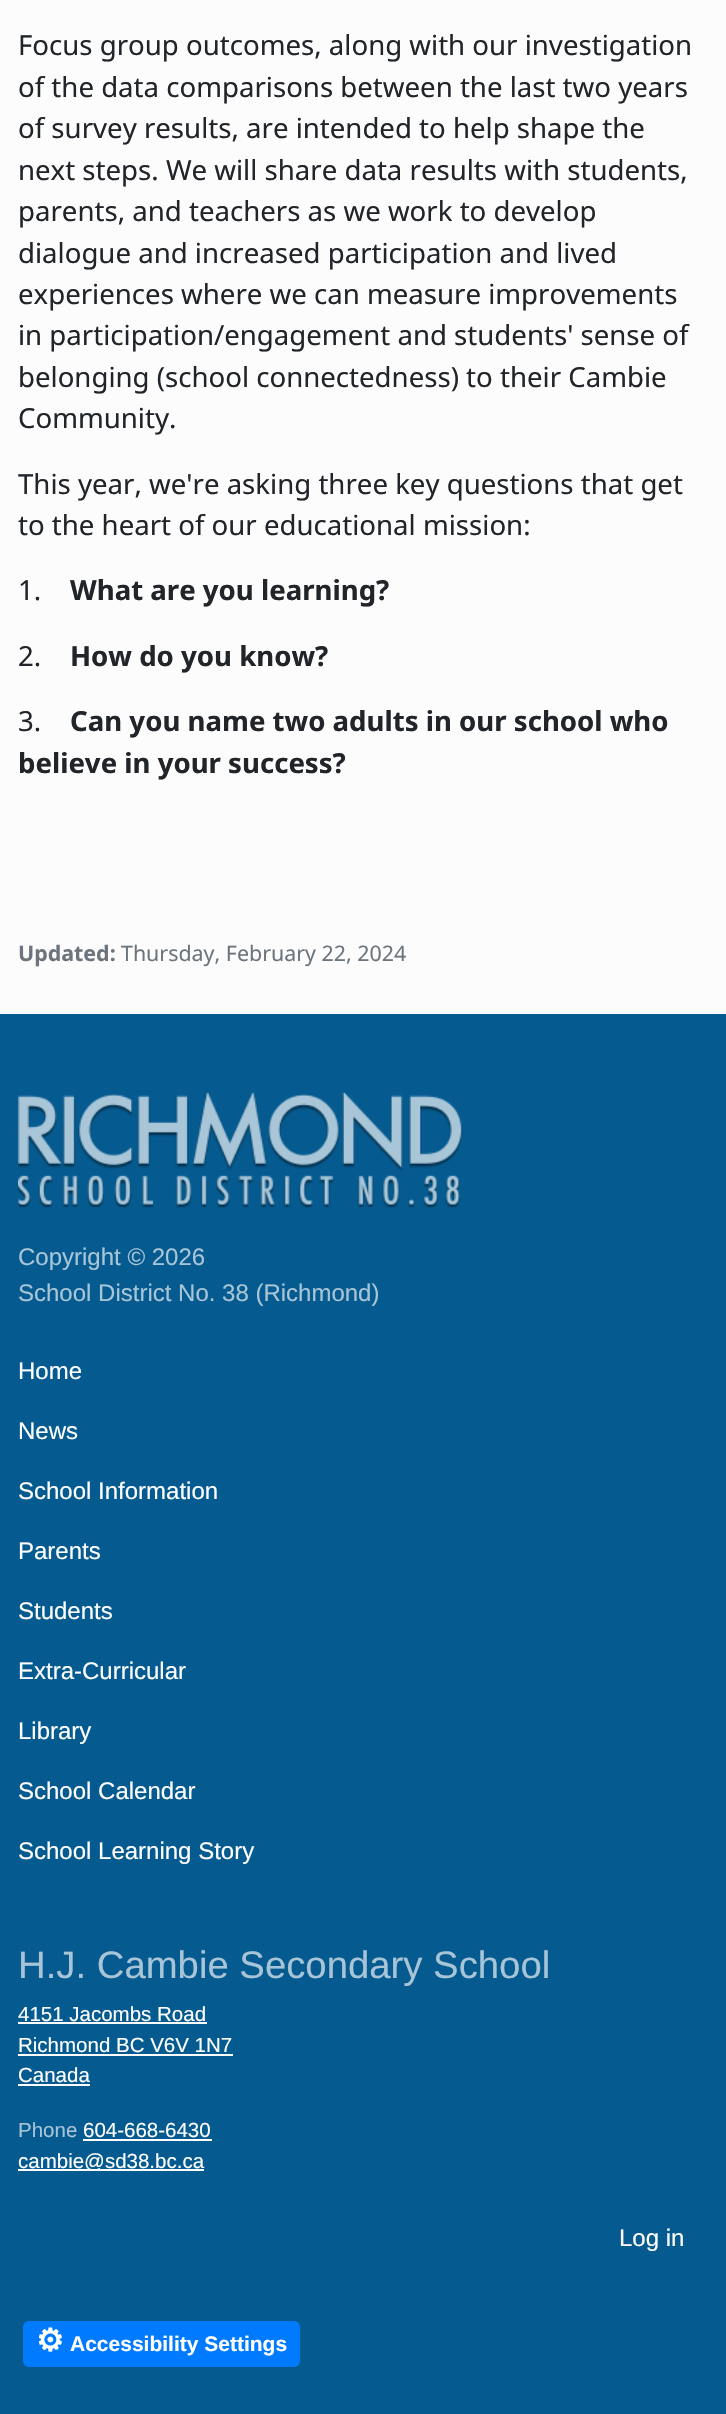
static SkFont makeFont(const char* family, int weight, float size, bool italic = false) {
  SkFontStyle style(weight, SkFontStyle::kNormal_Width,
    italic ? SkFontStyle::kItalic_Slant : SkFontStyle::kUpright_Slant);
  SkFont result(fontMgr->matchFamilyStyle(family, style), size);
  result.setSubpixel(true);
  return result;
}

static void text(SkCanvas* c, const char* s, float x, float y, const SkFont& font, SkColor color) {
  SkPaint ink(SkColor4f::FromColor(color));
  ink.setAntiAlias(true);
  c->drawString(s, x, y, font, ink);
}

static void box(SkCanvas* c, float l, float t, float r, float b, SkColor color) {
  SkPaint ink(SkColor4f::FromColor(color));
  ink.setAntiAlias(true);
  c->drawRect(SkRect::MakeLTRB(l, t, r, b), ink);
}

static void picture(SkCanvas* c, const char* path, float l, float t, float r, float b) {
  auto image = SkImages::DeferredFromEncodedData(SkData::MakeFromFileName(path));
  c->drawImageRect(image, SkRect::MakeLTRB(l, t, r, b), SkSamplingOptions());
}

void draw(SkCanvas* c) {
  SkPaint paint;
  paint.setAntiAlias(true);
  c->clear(0xfffcfcfc);
  SkFont face1 = makeFont("Noto Sans", 400, 27.6f);
  text(c, "Focus group outcomes, along with our investigation", 18, 55, face1, 0xff212529);
  text(c, "of the data comparisons between the last two years", 18, 97, face1, 0xff212529);
  text(c, "of survey results, are intended to help shape the", 18, 138, face1, 0xff212529);
  text(c, "next steps. We will share data results with students,", 18, 180, face1, 0xff212529);
  text(c, "parents, and teachers as we work to develop", 18, 221, face1, 0xff212529);
  text(c, "dialogue and increased participation and lived", 18, 263, face1, 0xff212529);
  text(c, "experiences where we can measure improvements", 18, 304, face1, 0xff212529);
  text(c, "in participation/engagement and students' sense of", 18, 345, face1, 0xff212529);
  text(c, "belonging (school connectedness) to their Cambie", 18, 387, face1, 0xff212529);
  text(c, "Community.", 18, 428, face1, 0xff212529);
  text(c, "This year, we're asking three key questions that get", 18, 494, face1, 0xff212529);
  text(c, "to the heart of our educational mission:", 18, 535, face1, 0xff212529);
  text(c, "1.", 18, 600, face1, 0xff212529);
  SkFont face2 = makeFont("Noto Sans", 700, 27.6f);
  text(c, "What are you learning?", 70, 600, face2, 0xff212529);
  text(c, "2.", 18, 666, face1, 0xff212529);
  text(c, "How do you know?", 70, 666, face2, 0xff212529);
  text(c, "3.", 18, 731, face1, 0xff212529);
  text(c, "Can you name two adults in our school who", 70, 731, face2, 0xff212529);
  text(c, "believe in your success?", 18, 773, face2, 0xff212529);
  SkFont face3 = makeFont("Noto Sans", 700, 21.4f);
  text(c, "Updated:", 18, 961, face3, 0xff6c757d);
  SkFont face4 = makeFont("Noto Sans", 400, 21.4f);
  text(c, "Thursday, February 22, 2024", 121, 961, face4, 0xff6c757d);
  box(c, 0, 1014, 726, 2414, 0xff055a8f);
  picture(c, "img_01.png", 18, 1092, 463, 1208);
  SkFont face5 = makeFont("Liberation Sans", 400, 24);
  text(c, "Copyright © 2026", 18, 1265, face5, 0xffa8c5d8);
  text(c, "School District No. 38 (Richmond)", 18, 1301, face5, 0xffa8c5d8);
  text(c, "Home", 18, 1379, face5, 0xffffffff);
  text(c, "News", 18, 1439, face5, 0xffffffff);
  text(c, "School Information", 18, 1499, face5, 0xffffffff);
  text(c, "Parents", 18, 1559, face5, 0xffffffff);
  text(c, "Students", 18, 1619, face5, 0xffffffff);
  text(c, "Extra-Curricular", 18, 1679, face5, 0xffffffff);
  text(c, "Library", 18, 1739, face5, 0xffffffff);
  text(c, "School Calendar", 18, 1799, face5, 0xffffffff);
  text(c, "School Learning Story", 18, 1859, face5, 0xffffffff);
  SkFont face6 = makeFont("Liberation Sans", 400, 38.3f);
  text(c, "H.J. Cambie Secondary School", 18, 1978, face6, 0xffa8c5d8);
  SkFont face7 = makeFont("Liberation Sans", 400, 20.5f);
  text(c, "4151 Jacombs Road", 18, 2021, face7, 0xffffffff);
  box(c, 18, 2022, 207, 2024, 0xffffffff);
  text(c, "Richmond BC V6V 1N7", 18, 2052, face7, 0xffffffff);
  box(c, 18, 2054, 233, 2056, 0xffffffff);
  text(c, "Canada", 18, 2082, face7, 0xffffffff);
  box(c, 18, 2084, 90, 2086, 0xffffffff);
  text(c, "Phone", 18, 2137, face7, 0xffa8c5d8);
  text(c, "604-668-6430", 83, 2137, face7, 0xffffffff);
  box(c, 83, 2139, 212, 2141, 0xffffffff);
  box(c, 18, 2169, 204, 2171, 0xffffffff);
  text(c, "cambie@sd38.bc.ca", 18, 2168, face7, 0xffffffff);
  text(c, "Log in", 619, 2246, face5, 0xffffffff);
  paint.setColor(0xff007bff);
  c->drawRoundRect(SkRect::MakeLTRB(24, 2322, 299, 2366), 5, 5, paint);
  paint.setStyle(SkPaint::kStroke_Style);
  paint.setStrokeWidth(2);
  c->drawRoundRect(SkRect::MakeLTRB(24, 2322, 299, 2366), 5, 5, paint);
  SkFont face8 = makeFont("DejaVu Sans", 700, 31);
  text(c, "⚙", 36, 2351, face8, 0xffffffff);
  SkFont face9 = makeFont("Liberation Sans", 700, 21);
  text(c, "Accessibility Settings", 70, 2351, face9, 0xffffffff);
}
